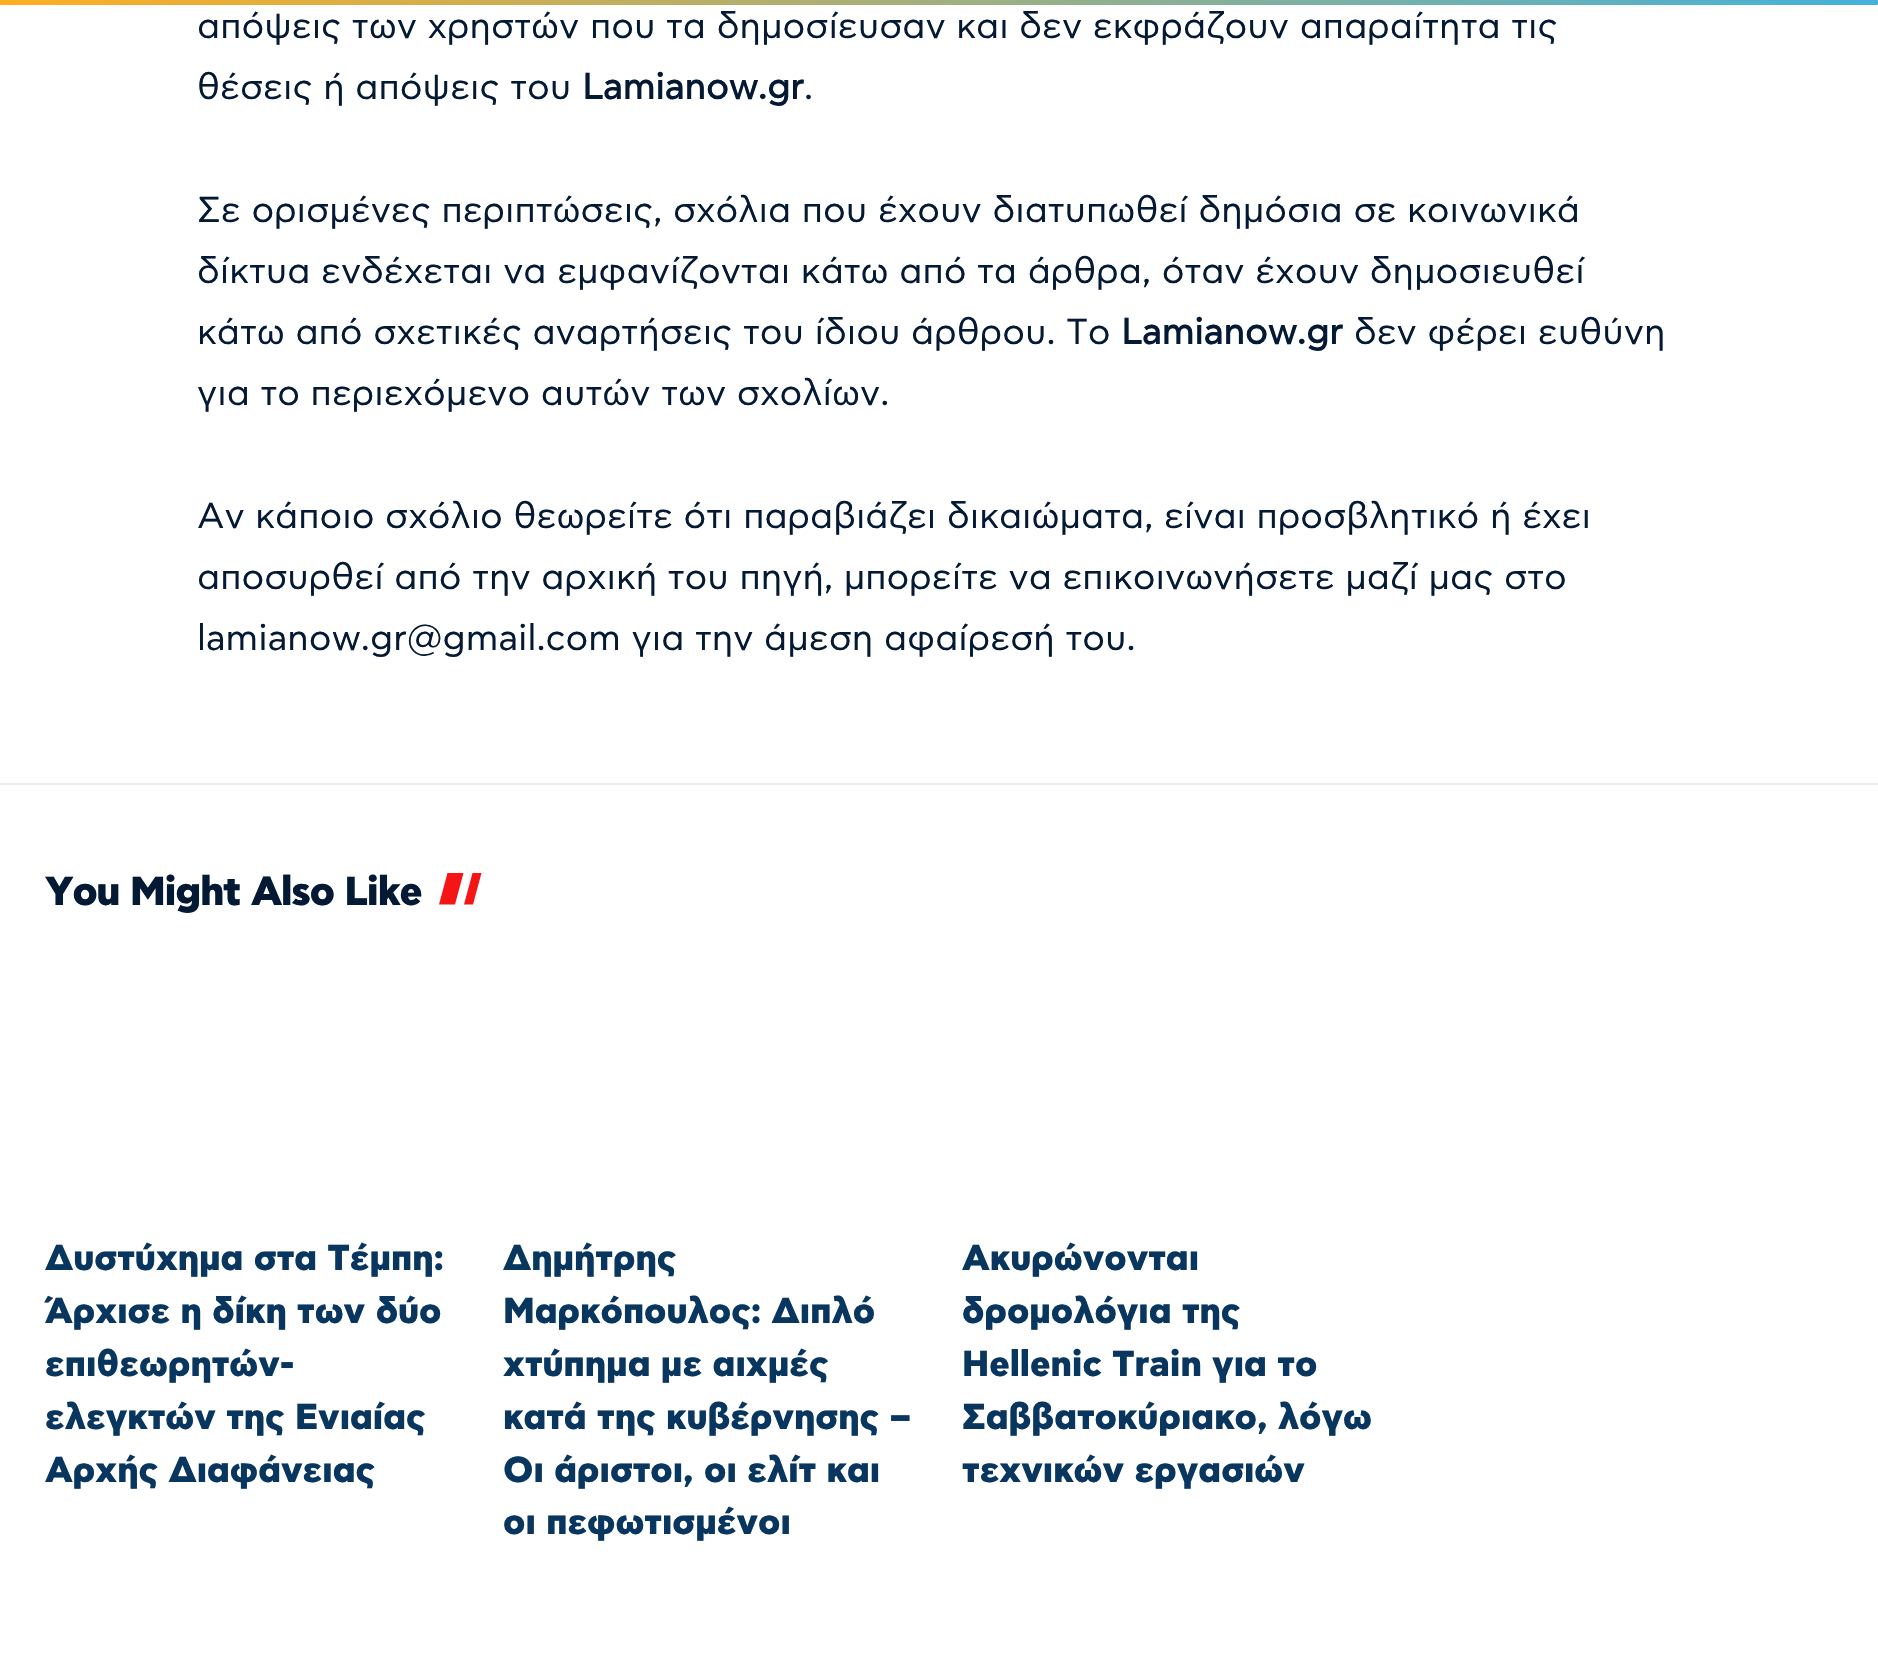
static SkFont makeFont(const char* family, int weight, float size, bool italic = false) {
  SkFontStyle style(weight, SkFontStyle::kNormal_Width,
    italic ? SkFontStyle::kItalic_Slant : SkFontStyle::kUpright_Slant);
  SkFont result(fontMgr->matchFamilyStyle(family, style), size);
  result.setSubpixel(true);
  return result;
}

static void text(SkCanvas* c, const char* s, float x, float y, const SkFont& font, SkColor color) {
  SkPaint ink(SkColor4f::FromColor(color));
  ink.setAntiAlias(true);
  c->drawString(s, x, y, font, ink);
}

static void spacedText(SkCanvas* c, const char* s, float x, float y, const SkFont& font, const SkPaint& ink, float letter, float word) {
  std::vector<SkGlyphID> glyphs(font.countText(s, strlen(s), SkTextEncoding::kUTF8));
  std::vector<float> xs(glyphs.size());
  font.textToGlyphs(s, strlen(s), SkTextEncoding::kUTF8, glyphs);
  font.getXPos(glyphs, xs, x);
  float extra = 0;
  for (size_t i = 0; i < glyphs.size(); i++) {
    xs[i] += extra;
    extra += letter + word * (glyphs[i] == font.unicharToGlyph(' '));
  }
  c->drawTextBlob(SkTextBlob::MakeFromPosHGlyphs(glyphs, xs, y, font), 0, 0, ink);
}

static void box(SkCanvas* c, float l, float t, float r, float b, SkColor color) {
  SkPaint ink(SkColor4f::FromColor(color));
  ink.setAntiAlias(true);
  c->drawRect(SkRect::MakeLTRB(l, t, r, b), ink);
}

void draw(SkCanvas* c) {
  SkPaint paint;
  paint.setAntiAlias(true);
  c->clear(0xffffffff);
  {
    const SkColor colors[] = {0xffffad21, 0xff43b2db};
    const float stops[] = {0, 1};
    const SkPoint ends[] = {{0, 2.3f}, {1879, 2.2f}};
    paint.setShader(SkGradientShader::MakeLinear(ends, colors, stops, 2, SkTileMode::kClamp));
    paint.setAlpha(255);
  }
  c->drawPath(SkPathBuilder().moveTo(0, 0).lineTo(1876.5f, 0).cubicTo(1878, 0, 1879, 1, 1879, 2.5f).cubicTo(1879, 4, 1878, 5, 1876.5f, 5).lineTo(0, 5).close().detach(), paint);
  SkFont face1 = makeFont("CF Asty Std", 400, 36);
  text(c, "απόψεις των χρηστών που τα δημοσίευσαν και δεν εκφράζουν απαραίτητα τις", 197, 38, face1, 0xff031934);
  text(c, "θέσεις ή απόψεις του", 197, 99, face1, 0xff031934);
  SkFont face2 = makeFont("CF Asty Std", 700, 36);
  text(c, "Lamianow.gr", 582, 99, face2, 0xff031934);
  text(c, ".", 804, 99, face1, 0xff031934);
  text(c, "Σε ορισμένες περιπτώσεις, σχόλια που έχουν διατυπωθεί δημόσια σε κοινωνικά", 197, 222, face1, 0xff031934);
  text(c, "δίκτυα ενδέχεται να εμφανίζονται κάτω από τα άρθρα, όταν έχουν δημοσιευθεί", 197, 283, face1, 0xff031934);
  text(c, "κάτω από σχετικές αναρτήσεις του ίδιου άρθρου. Το", 197, 344, face1, 0xff031934);
  text(c, "Lamianow.gr", 1121, 344, face2, 0xff031934);
  text(c, "δεν φέρει ευθύνη", 1354, 344, face1, 0xff031934);
  text(c, "για το περιεχόμενο αυτών των σχολίων.", 197, 405, face1, 0xff031934);
  text(c, "Αν κάποιο σχόλιο θεωρείτε ότι παραβιάζει δικαιώματα, είναι προσβλητικό ή έχει", 197, 528, face1, 0xff031934);
  text(c, "αποσυρθεί από την αρχική του πηγή, μπορείτε να επικοινωνήσετε μαζί μας στο", 197, 589, face1, 0xff031934);
  text(c, "lamianow.gr@gmail.com για την άμεση αφαίρεσή του.", 197, 650, face1, 0xff031934);
  box(c, 0, 783, 1878, 785, 0xffededed);
  SkFont face3 = makeFont("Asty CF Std", 800, 40.5f);
  paint.setShader(nullptr);
  paint.setColor(0xff031934);
  spacedText(c, "You Might Also Like", 45, 905, face3, paint, -1.1f, 0);
  paint.setColor(0xfff51416);
  c->drawPath(SkPathBuilder().moveTo(472.5f, 873).lineTo(481.5f, 873).lineTo(473, 904.5f).lineTo(464, 904.5f).close().moveTo(447.5f, 873).lineTo(463.5f, 873).lineTo(455, 904.5f).lineTo(439, 904.5f).close().detach(), paint);
  SkFont face4 = makeFont("Asty CF Std", 800, 36);
  text(c, "Δυστύχημα στα Τέμπη:", 45, 1270, face4, 0xff09365e);
  text(c, "Άρχισε η δίκη των δύο", 45, 1323, face4, 0xff09365e);
  text(c, "επιθεωρητών-", 45, 1376, face4, 0xff09365e);
  text(c, "ελεγκτών της Ενιαίας", 45, 1429, face4, 0xff09365e);
  text(c, "Αρχής Διαφάνειας", 45, 1482, face4, 0xff09365e);
  text(c, "Δημήτρης", 503, 1270, face4, 0xff09365e);
  text(c, "Μαρκόπουλος: Διπλό", 503, 1323, face4, 0xff09365e);
  text(c, "χτύπημα με αιχμές", 503, 1376, face4, 0xff09365e);
  text(c, "κατά της κυβέρνησης –", 503, 1429, face4, 0xff09365e);
  text(c, "Οι άριστοι, οι ελίτ και", 503, 1482, face4, 0xff09365e);
  text(c, "οι πεφωτισμένοι", 503, 1534, face4, 0xff09365e);
  text(c, "Ακυρώνονται", 962, 1270, face4, 0xff09365e);
  text(c, "δρομολόγια της", 962, 1323, face4, 0xff09365e);
  text(c, "Hellenic Train για το", 962, 1376, face4, 0xff09365e);
  text(c, "Σαββατοκύριακο, λόγω", 962, 1429, face4, 0xff09365e);
  text(c, "τεχνικών εργασιών", 962, 1482, face4, 0xff09365e);
}
